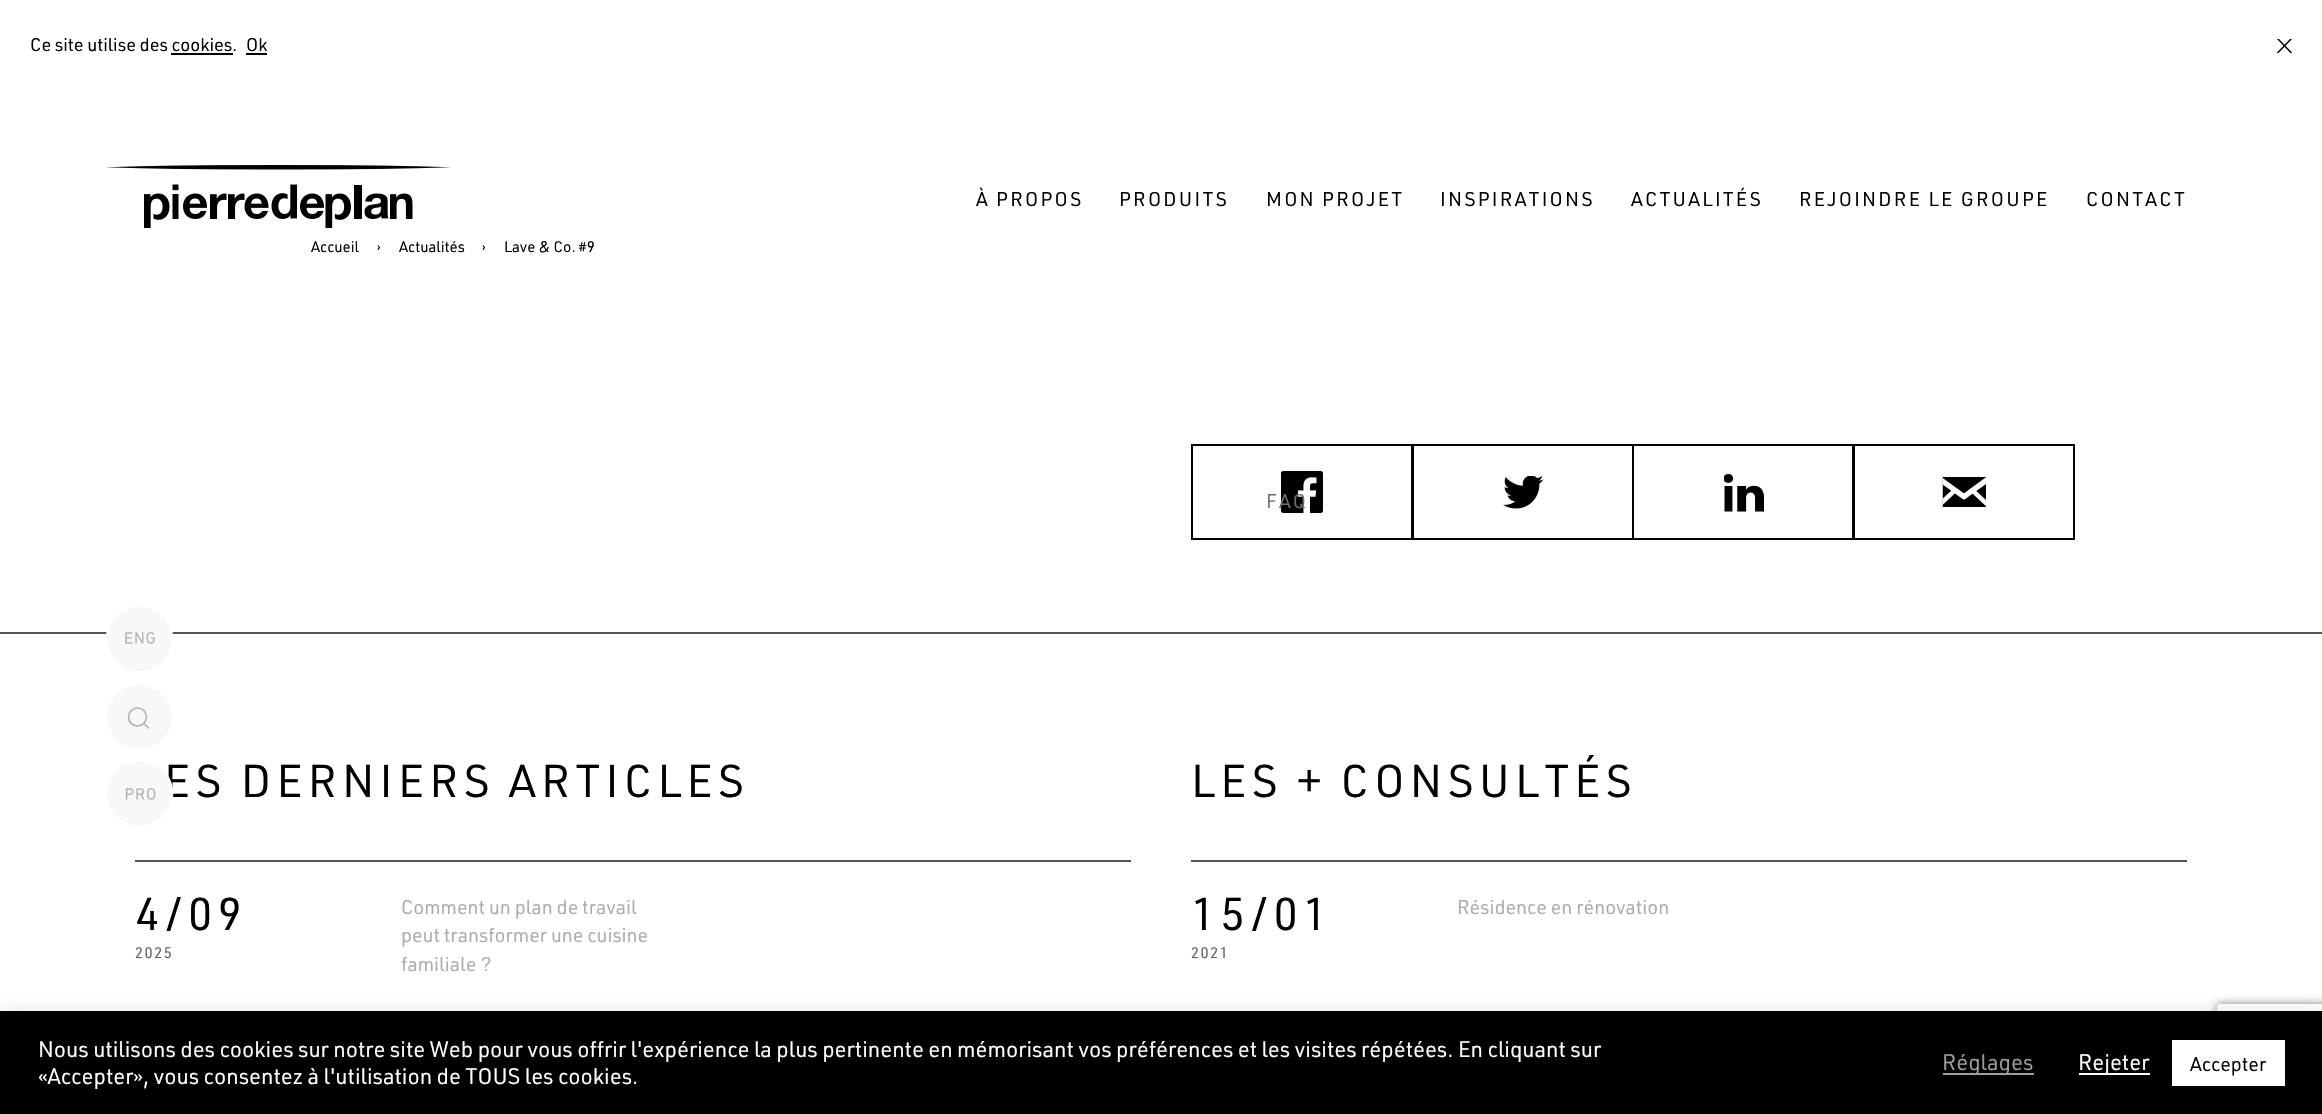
static SkFont makeFont(const char* family, int weight, float size, bool italic = false) {
  SkFontStyle style(weight, SkFontStyle::kNormal_Width,
    italic ? SkFontStyle::kItalic_Slant : SkFontStyle::kUpright_Slant);
  SkFont result(fontMgr->matchFamilyStyle(family, style), size);
  result.setSubpixel(true);
  return result;
}

static void text(SkCanvas* c, const char* s, float x, float y, const SkFont& font, SkColor color) {
  SkPaint ink(SkColor4f::FromColor(color));
  ink.setAntiAlias(true);
  c->drawString(s, x, y, font, ink);
}

static void spacedText(SkCanvas* c, const char* s, float x, float y, const SkFont& font, const SkPaint& ink, float letter, float word) {
  std::vector<SkGlyphID> glyphs(font.countText(s, strlen(s), SkTextEncoding::kUTF8));
  std::vector<float> xs(glyphs.size());
  font.textToGlyphs(s, strlen(s), SkTextEncoding::kUTF8, glyphs);
  font.getXPos(glyphs, xs, x);
  float extra = 0;
  for (size_t i = 0; i < glyphs.size(); i++) {
    xs[i] += extra;
    extra += letter + word * (glyphs[i] == font.unicharToGlyph(' '));
  }
  c->drawTextBlob(SkTextBlob::MakeFromPosHGlyphs(glyphs, xs, y, font), 0, 0, ink);
}

static void box(SkCanvas* c, float l, float t, float r, float b, SkColor color) {
  SkPaint ink(SkColor4f::FromColor(color));
  ink.setAntiAlias(true);
  c->drawRect(SkRect::MakeLTRB(l, t, r, b), ink);
}

static void picture(SkCanvas* c, const char* path, float l, float t, float r, float b) {
  auto image = SkImages::DeferredFromEncodedData(SkData::MakeFromFileName(path));
  c->drawImageRect(image, SkRect::MakeLTRB(l, t, r, b), SkSamplingOptions());
}

void draw(SkCanvas* c) {
  SkPaint paint;
  paint.setAntiAlias(true);
  c->clear(0xffffffff);
  SkFont face1 = makeFont("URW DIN", 400, 18);
  text(c, "Ce site utilise des cookies", 30, 51, face1, 0xff000000);
  text(c, ".", 232, 51, face1, 0xff000000);
  box(c, 171, 53, 233, 55, 0xff000000);
  text(c, "Ok", 246, 51, face1, 0xff000000);
  box(c, 246, 53, 267, 55, 0xff000000);
  c->save();
  c->clipRect(SkRect::MakeLTRB(2277, 39, 2292, 53));
  paint.setStyle(SkPaint::kStroke_Style);
  paint.setStrokeWidth(1.5f);
  paint.setStrokeCap(SkPaint::kSquare_Cap);
  paint.setColor(0xff000000);
  c->drawPath(SkPathBuilder().moveTo(2278, 39).lineTo(2291, 52.5f).moveTo(2291, 39).lineTo(2278, 52.5f).detach(), paint);
  c->restore();
  SkFont face2 = makeFont("URW DIN", 400, 15);
  text(c, "Accueil", 311, 252, face2, 0xff000000);
  text(c, "›", 377, 252, face2, 0xff000000);
  text(c, "Actualités", 399, 252, face2, 0xff000000);
  text(c, "›", 482, 252, face2, 0xff000000);
  text(c, "Lave & Co. #9", 504, 252, face2, 0xff000000);
  picture(c, "img_01.png", 106, 165, 451, 228);
  SkFont face3 = makeFont("URW DIN", 400, 19.5f);
  paint.setStyle(SkPaint::kFill_Style);
  spacedText(c, "À PROPOS", 976, 206, face3, paint, 2.25f, 0);
  spacedText(c, "PRODUITS", 1119, 206, face3, paint, 2.25f, 0);
  spacedText(c, "MON PROJET", 1266, 206, face3, paint, 2.25f, 0);
  paint.setStyle(SkPaint::kStroke_Style);
  paint.setStrokeWidth(2);
  paint.setStrokeCap(SkPaint::kButt_Cap);
  c->drawRect(SkRect::MakeLTRB(1192, 445, 1412, 539), paint);
  picture(c, "img_04.png", 1281, 471, 1323, 513);
  paint.setStyle(SkPaint::kFill_Style);
  paint.setColor(0xff6e6e6e);
  spacedText(c, "FAQ", 1266, 508, face3, paint, 2.25f, 0);
  paint.setColor(0xff000000);
  spacedText(c, "INSPIRATIONS", 1440, 206, face3, paint, 2.25f, 0);
  spacedText(c, "ACTUALITÉS", 1631, 206, face3, paint, 2.25f, 0);
  spacedText(c, "REJOINDRE LE GROUPE", 1799, 206, face3, paint, 2.25f, 0);
  spacedText(c, "CONTACT", 2086, 206, face3, paint, 2.25f, 0);
  box(c, 0, 632, 2322, 634, 0xff555555);
  picture(c, "img_02.png", 106, 607, 173, 671);
  paint.setColor(0xfff8f8f8);
  c->drawCircle(139.5f, 717, 33, paint);
  paint.setStyle(SkPaint::kStroke_Style);
  paint.setStrokeWidth(1.5f);
  paint.setColor(0xffffffff);
  c->drawCircle(139.5f, 717, 33, paint);
  paint.setColor(0xffb0b0b0);
  c->drawCircle(137.5f, 717, 9, paint);
  paint.setStrokeCap(SkPaint::kSquare_Cap);
  c->drawPath(SkPathBuilder().moveTo(145, 724.5f).lineTo(148.5f, 728).detach(), paint);
  SkFont face4 = makeFont("URW DIN", 400, 45);
  paint.setStyle(SkPaint::kFill_Style);
  paint.setColor(0xff000000);
  spacedText(c, "ES DERNIERS ARTICLES", 164, 797, face4, paint, 5.2f, 0);
  picture(c, "img_03.png", 107, 761, 174, 826);
  paint.setStyle(SkPaint::kStroke_Style);
  paint.setStrokeWidth(2);
  paint.setStrokeCap(SkPaint::kButt_Cap);
  c->drawRect(SkRect::MakeLTRB(1413, 445, 1633, 539), paint);
  picture(c, "img_05.png", 1503, 476, 1544, 509);
  c->drawRect(SkRect::MakeLTRB(1633, 445, 1853, 539), paint);
  picture(c, "img_06.png", 1724, 474, 1764, 512);
  c->drawRect(SkRect::MakeLTRB(1854, 445, 2074, 539), paint);
  picture(c, "img_07.png", 1942, 477, 1986, 507);
  box(c, 135, 860, 1131, 862, 0xff555555);
  paint.setStyle(SkPaint::kFill_Style);
  spacedText(c, "4/09", 135, 930, face4, paint, 5.2f, 0);
  paint.setColor(0xff5f5f5f);
  spacedText(c, "2025", 135, 958, face2, paint, 1.5f, 0);
  text(c, "Comment un plan de travail", 401, 914, face3, 0xffacacac);
  text(c, "peut transformer une cuisine", 401, 942, face3, 0xffacacac);
  text(c, "familiale ?", 401, 971, face3, 0xffacacac);
  paint.setColor(0xff000000);
  spacedText(c, "LES + CONSULTÉS", 1191, 797, face4, paint, 5.2f, 0);
  box(c, 1191, 860, 2187, 862, 0xff555555);
  spacedText(c, "15/01", 1191, 930, face4, paint, 5.2f, 0);
  paint.setColor(0xff5f5f5f);
  spacedText(c, "2021", 1191, 958, face2, paint, 1.5f, 0);
  text(c, "Résidence en rénovation", 1457, 914, face3, 0xffacacac);
  c->save();
  c->clipPath(SkPathBuilder(SkPathFillType::kEvenOdd).moveTo(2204, 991).lineTo(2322, 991).lineTo(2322, 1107).lineTo(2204, 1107).close().moveTo(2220, 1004).lineTo(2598, 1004).cubicTo(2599.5f, 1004, 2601, 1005.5f, 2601, 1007).lineTo(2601, 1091).cubicTo(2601, 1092.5f, 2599.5f, 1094, 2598, 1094).lineTo(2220, 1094).cubicTo(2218.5f, 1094, 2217, 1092.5f, 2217, 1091).lineTo(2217, 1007).cubicTo(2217, 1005.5f, 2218.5f, 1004, 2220, 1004).close().detach(), true);
  paint.setColor(0xff808080);
  paint.setMaskFilter(SkMaskFilter::MakeBlur(kNormal_SkBlurStyle, 4));
  c->drawRoundRect(SkRect::MakeLTRB(2217, 1004, 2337, 1094), 3, 3, paint);
  paint.setMaskFilter(nullptr);
  c->restore();
  paint.setColor(0x4dacabab);
  paint.setMaskFilter(SkMaskFilter::MakeBlur(kNormal_SkBlurStyle, 7.5f));
  c->drawRect(SkRect::MakeLTRB(0, 1010, 2322, 1113), paint);
  paint.setMaskFilter(nullptr);
  box(c, 0, 1011, 2322, 1114, 0xff000000);
  SkFont face5 = makeFont("URW DIN", 400, 22);
  text(c, "Nous utilisons des cookies sur notre site Web pour vous offrir l'expérience la plus pertinente en mémorisant vos préférences et les visites répétées. En cliquant sur", 38, 1057, face5, 0xffffffff);
  text(c, "«Accepter», vous consentez à l'utilisation de TOUS les cookies.", 38, 1084, face5, 0xffffffff);
  box(c, 1943, 1073, 2034, 1075, 0xff9e9e9e);
  text(c, "Réglages", 1942, 1070, face5, 0xff9e9e9e);
  box(c, 2079, 1073, 2150, 1075, 0xffffffff);
  text(c, "Rejeter", 2078, 1070, face5, 0xffffffff);
  box(c, 2172, 1040, 2285, 1086, 0xffffffff);
  text(c, "Accepter", 2190, 1071, face3, 0xff000000);
}
